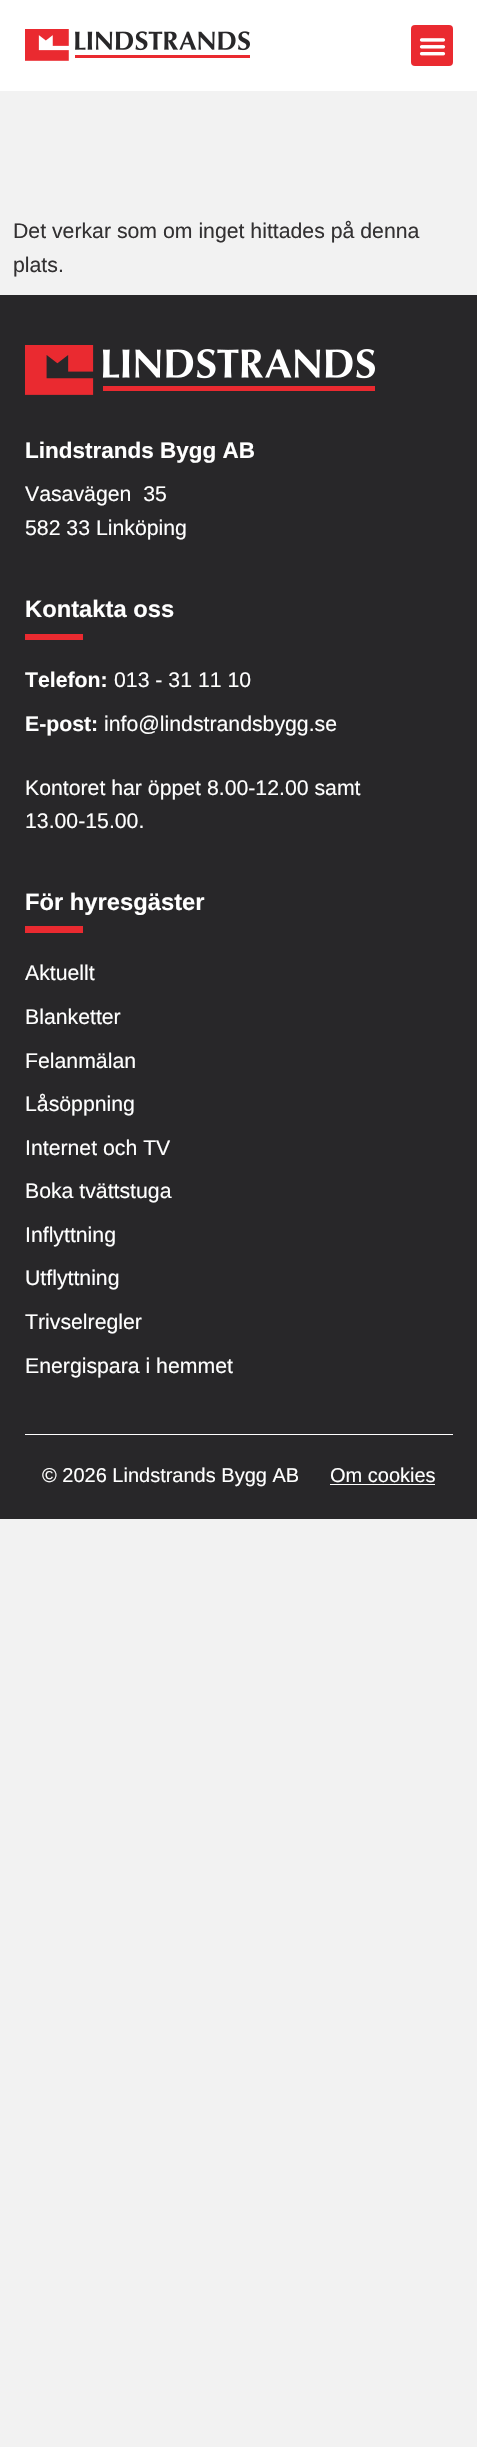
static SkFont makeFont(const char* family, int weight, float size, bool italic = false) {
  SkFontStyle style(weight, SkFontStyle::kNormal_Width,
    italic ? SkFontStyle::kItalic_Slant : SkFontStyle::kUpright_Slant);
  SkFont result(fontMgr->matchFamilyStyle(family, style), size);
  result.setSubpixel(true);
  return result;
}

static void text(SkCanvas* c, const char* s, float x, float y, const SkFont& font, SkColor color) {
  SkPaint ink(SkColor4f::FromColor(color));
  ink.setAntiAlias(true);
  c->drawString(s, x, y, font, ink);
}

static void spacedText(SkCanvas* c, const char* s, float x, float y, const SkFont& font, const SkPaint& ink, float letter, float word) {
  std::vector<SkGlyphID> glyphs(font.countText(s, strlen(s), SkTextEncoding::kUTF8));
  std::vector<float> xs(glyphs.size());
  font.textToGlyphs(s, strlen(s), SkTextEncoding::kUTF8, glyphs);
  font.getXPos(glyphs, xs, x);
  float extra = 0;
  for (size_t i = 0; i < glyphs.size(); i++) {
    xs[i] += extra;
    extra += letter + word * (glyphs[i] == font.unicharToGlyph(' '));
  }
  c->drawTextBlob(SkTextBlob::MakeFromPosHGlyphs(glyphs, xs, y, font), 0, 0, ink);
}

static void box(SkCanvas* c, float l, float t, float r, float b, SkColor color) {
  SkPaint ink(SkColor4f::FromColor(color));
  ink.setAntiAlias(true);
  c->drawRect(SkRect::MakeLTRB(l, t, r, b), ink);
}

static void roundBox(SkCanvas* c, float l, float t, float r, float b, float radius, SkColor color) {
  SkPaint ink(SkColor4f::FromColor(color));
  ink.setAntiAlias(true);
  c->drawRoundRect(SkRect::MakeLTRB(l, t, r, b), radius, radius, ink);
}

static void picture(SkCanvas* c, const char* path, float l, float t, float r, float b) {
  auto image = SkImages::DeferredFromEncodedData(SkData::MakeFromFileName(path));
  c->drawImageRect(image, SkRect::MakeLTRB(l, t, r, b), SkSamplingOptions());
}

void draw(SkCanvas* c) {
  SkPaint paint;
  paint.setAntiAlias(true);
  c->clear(0xfff2f2f2);
  box(c, 0, 0, 477, 91, 0xffffffff);
  picture(c, "img_01.png", 25, 29, 250, 61);
  roundBox(c, 411, 25, 453, 66, 4, 0xffea2a30);
  picture(c, "img_02.png", 419, 38, 446, 56);
  SkFont face1 = makeFont("Liberation Sans", 400, 21.25f);
  text(c, "Det verkar som om inget hittades på denna", 13, 238, face1, 0xff333132);
  text(c, "plats.", 13, 272, face1, 0xff333132);
  box(c, 0, 295, 477, 1519, 0xff282729);
  picture(c, "img_03.png", 25, 345, 375, 395);
  SkFont face2 = makeFont("Liberation Sans", 700, 22.5f);
  text(c, "Lindstrands Bygg AB", 25, 458, face2, 0xffffffff);
  paint.setColor(0xffffffff);
  spacedText(c, "Vasavägen 35", 25, 501, face1, paint, 0, 6);
  text(c, "582 33 Linköping", 25, 535, face1, 0xffffffff);
  SkFont face3 = makeFont("Liberation Sans", 700, 23.75f);
  text(c, "Kontakta oss", 25, 617, face3, 0xffffffff);
  box(c, 25, 634, 83, 640, 0xffea2a30);
  SkFont face4 = makeFont("Liberation Sans", 700, 21.25f);
  text(c, "Telefon:", 25, 687, face4, 0xffffffff);
  text(c, "013 - 31 11 10", 114, 687, face1, 0xffffffff);
  text(c, "E-post:", 25, 731, face4, 0xffffffff);
  text(c, "info@lindstrandsbygg.se", 104, 731, face1, 0xffffffff);
  text(c, "Kontoret har öppet 8.00-12.00 samt", 25, 795, face1, 0xffffffff);
  text(c, "13.00-15.00.", 25, 828, face1, 0xffffffff);
  text(c, "För hyresgäster", 25, 910, face3, 0xffffffff);
  box(c, 25, 926, 83, 933, 0xffea2a30);
  text(c, "Aktuellt", 25, 980, face1, 0xffffffff);
  text(c, "Blanketter", 25, 1024, face1, 0xffffffff);
  text(c, "Felanmälan", 25, 1068, face1, 0xffffffff);
  text(c, "Låsöppning", 25, 1111, face1, 0xffffffff);
  text(c, "Internet och TV", 25, 1155, face1, 0xffffffff);
  text(c, "Boka tvättstuga", 25, 1198, face1, 0xffffffff);
  text(c, "Inflyttning", 25, 1242, face1, 0xffffffff);
  text(c, "Utflyttning", 25, 1285, face1, 0xffffffff);
  text(c, "Trivselregler", 25, 1329, face1, 0xffffffff);
  text(c, "Energispara i hemmet", 25, 1373, face1, 0xffffffff);
  box(c, 25, 1434, 453, 1435, 0xffffffff);
  SkFont face5 = makeFont("Liberation Sans", 400, 20);
  text(c, "© 2026 Lindstrands Bygg AB", 42, 1482, face5, 0xffffffff);
  text(c, "Om cookies", 330, 1482, face5, 0xffffffff);
  box(c, 330, 1484, 435, 1485, 0xffffffff);
}
